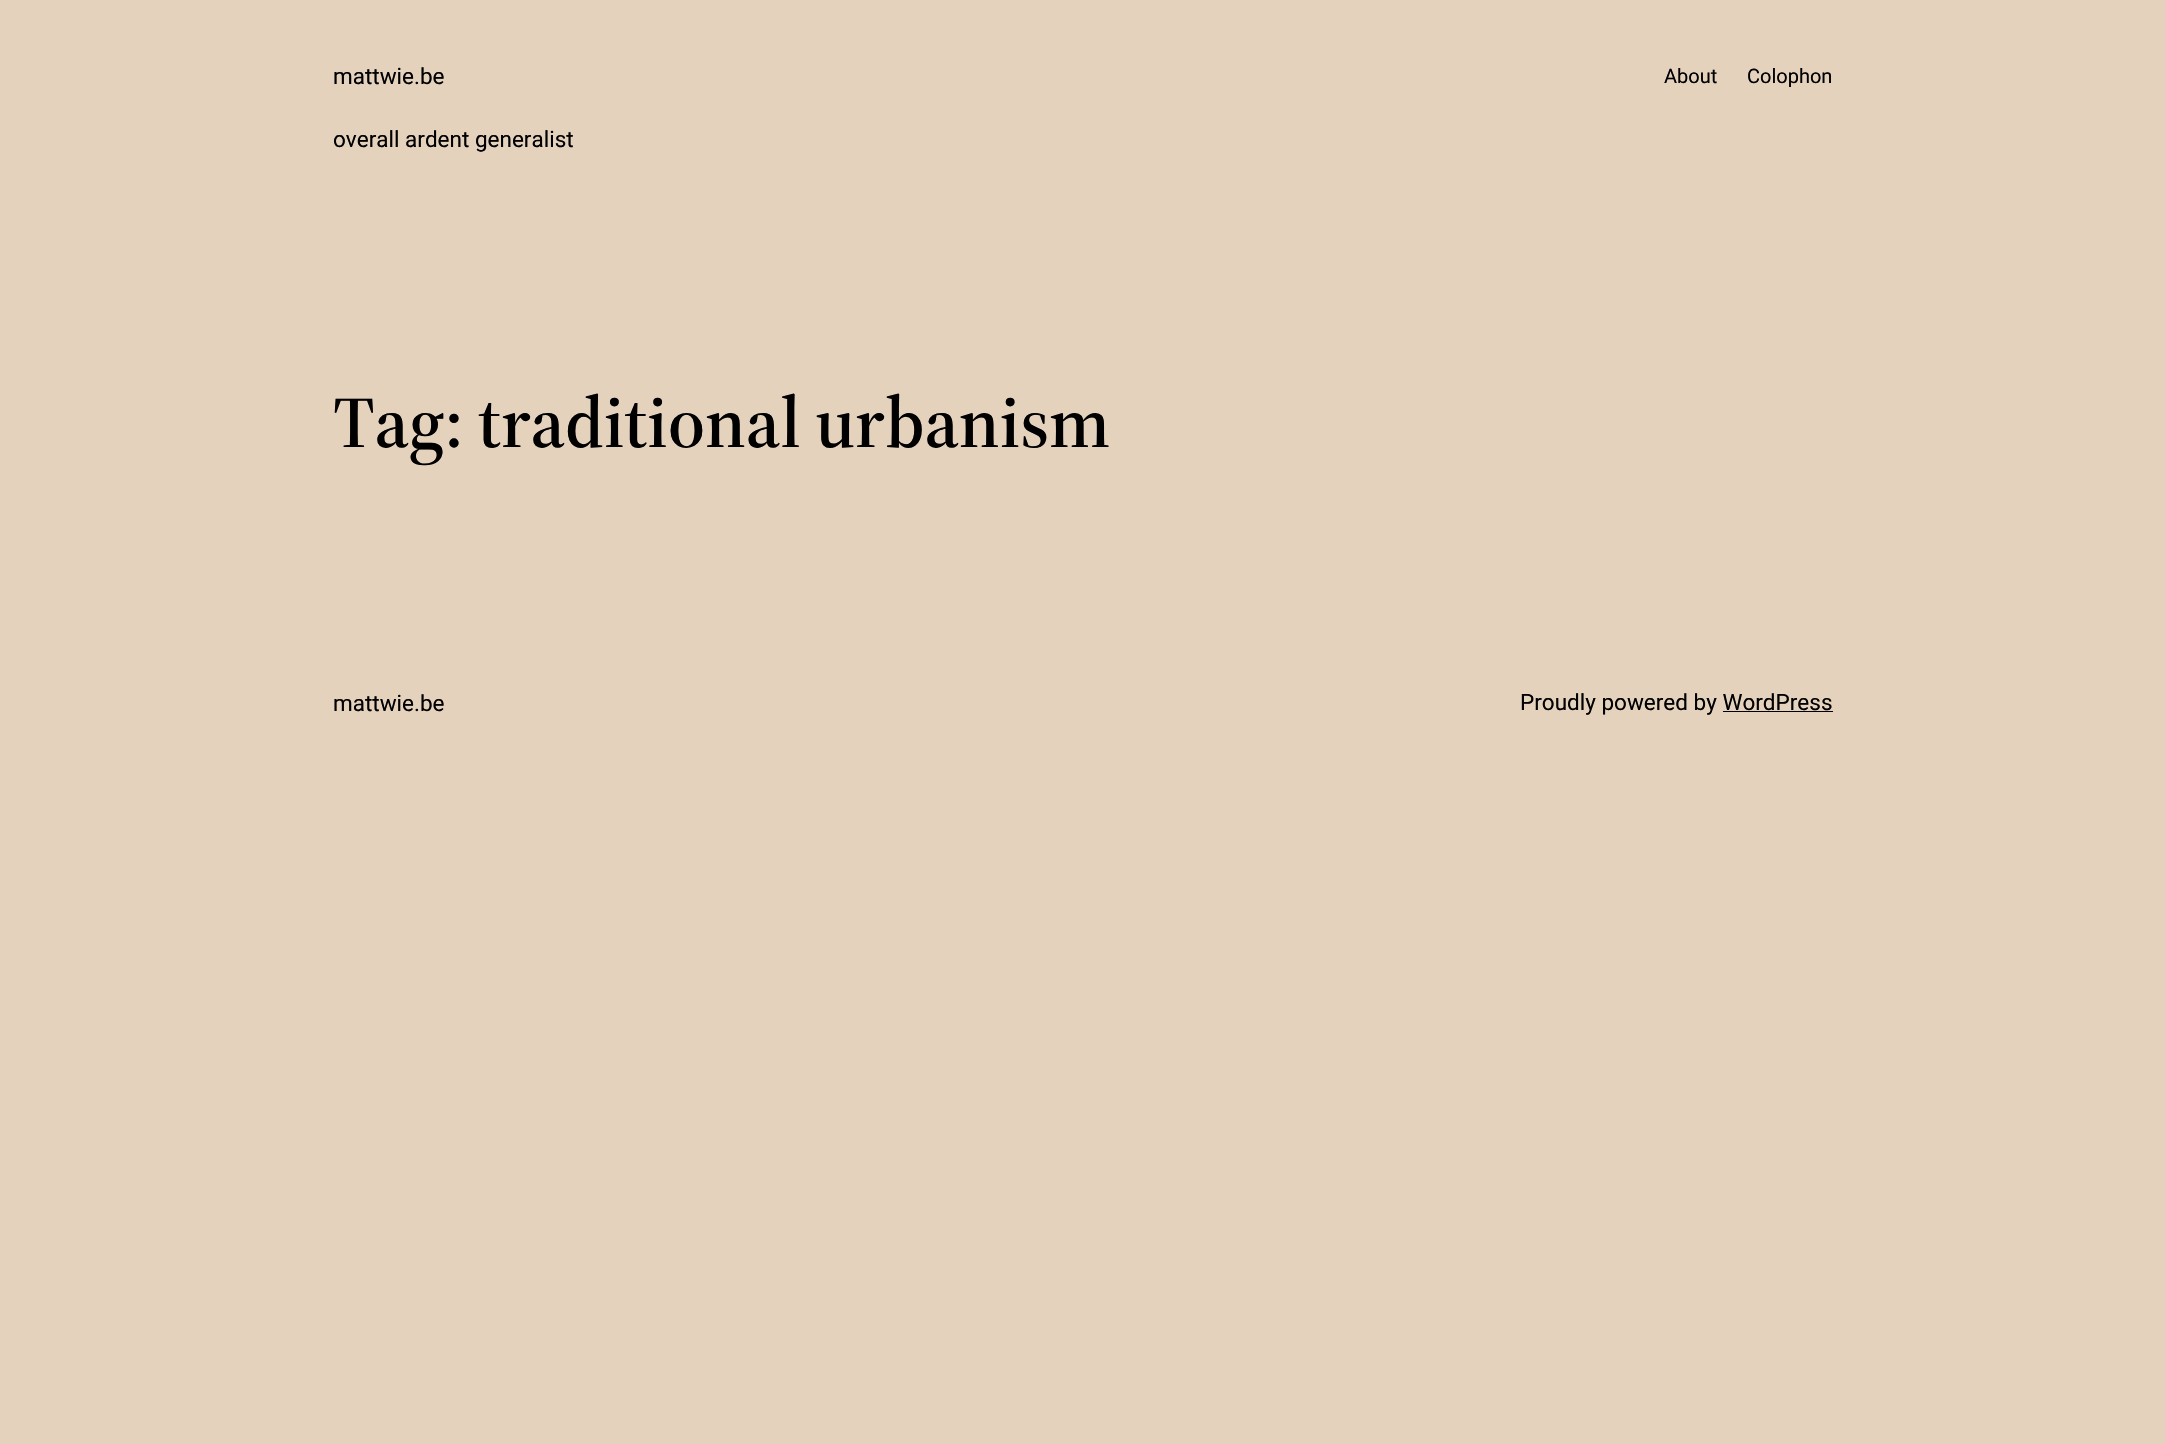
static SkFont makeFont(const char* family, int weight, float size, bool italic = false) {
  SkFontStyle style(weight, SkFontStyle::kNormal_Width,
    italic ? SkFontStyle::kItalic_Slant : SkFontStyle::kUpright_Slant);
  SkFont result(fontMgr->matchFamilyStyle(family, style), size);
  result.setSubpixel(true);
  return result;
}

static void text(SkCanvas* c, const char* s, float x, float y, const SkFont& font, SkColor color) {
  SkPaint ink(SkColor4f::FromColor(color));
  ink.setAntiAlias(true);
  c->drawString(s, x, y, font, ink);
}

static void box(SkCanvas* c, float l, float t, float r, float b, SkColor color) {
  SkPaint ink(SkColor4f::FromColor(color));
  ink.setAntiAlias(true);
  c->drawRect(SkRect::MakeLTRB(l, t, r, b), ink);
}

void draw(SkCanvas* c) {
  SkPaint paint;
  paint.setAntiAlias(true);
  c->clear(0xffe5d2bd);
  SkFont face1 = makeFont("Roboto", 400, 22.5f);
  text(c, "mattwie.be", 333, 84, face1, 0xff000000);
  SkFont face2 = makeFont("Roboto", 400, 20);
  text(c, "About", 1664, 83, face2, 0xff000000);
  text(c, "Colophon", 1747, 83, face2, 0xff000000);
  text(c, "overall ardent generalist", 333, 147, face1, 0xff000000);
  SkFont face3 = makeFont("Source Serif 4", 600, 72.5f);
  text(c, "Tag: traditional urbanism", 333, 447, face3, 0xff000000);
  text(c, "mattwie.be", 333, 711, face1, 0xff000000);
  text(c, "Proudly powered by WordPress", 1520, 710, face1, 0xff000000);
  box(c, 1723, 711, 1833, 712, 0xff000000);
}
